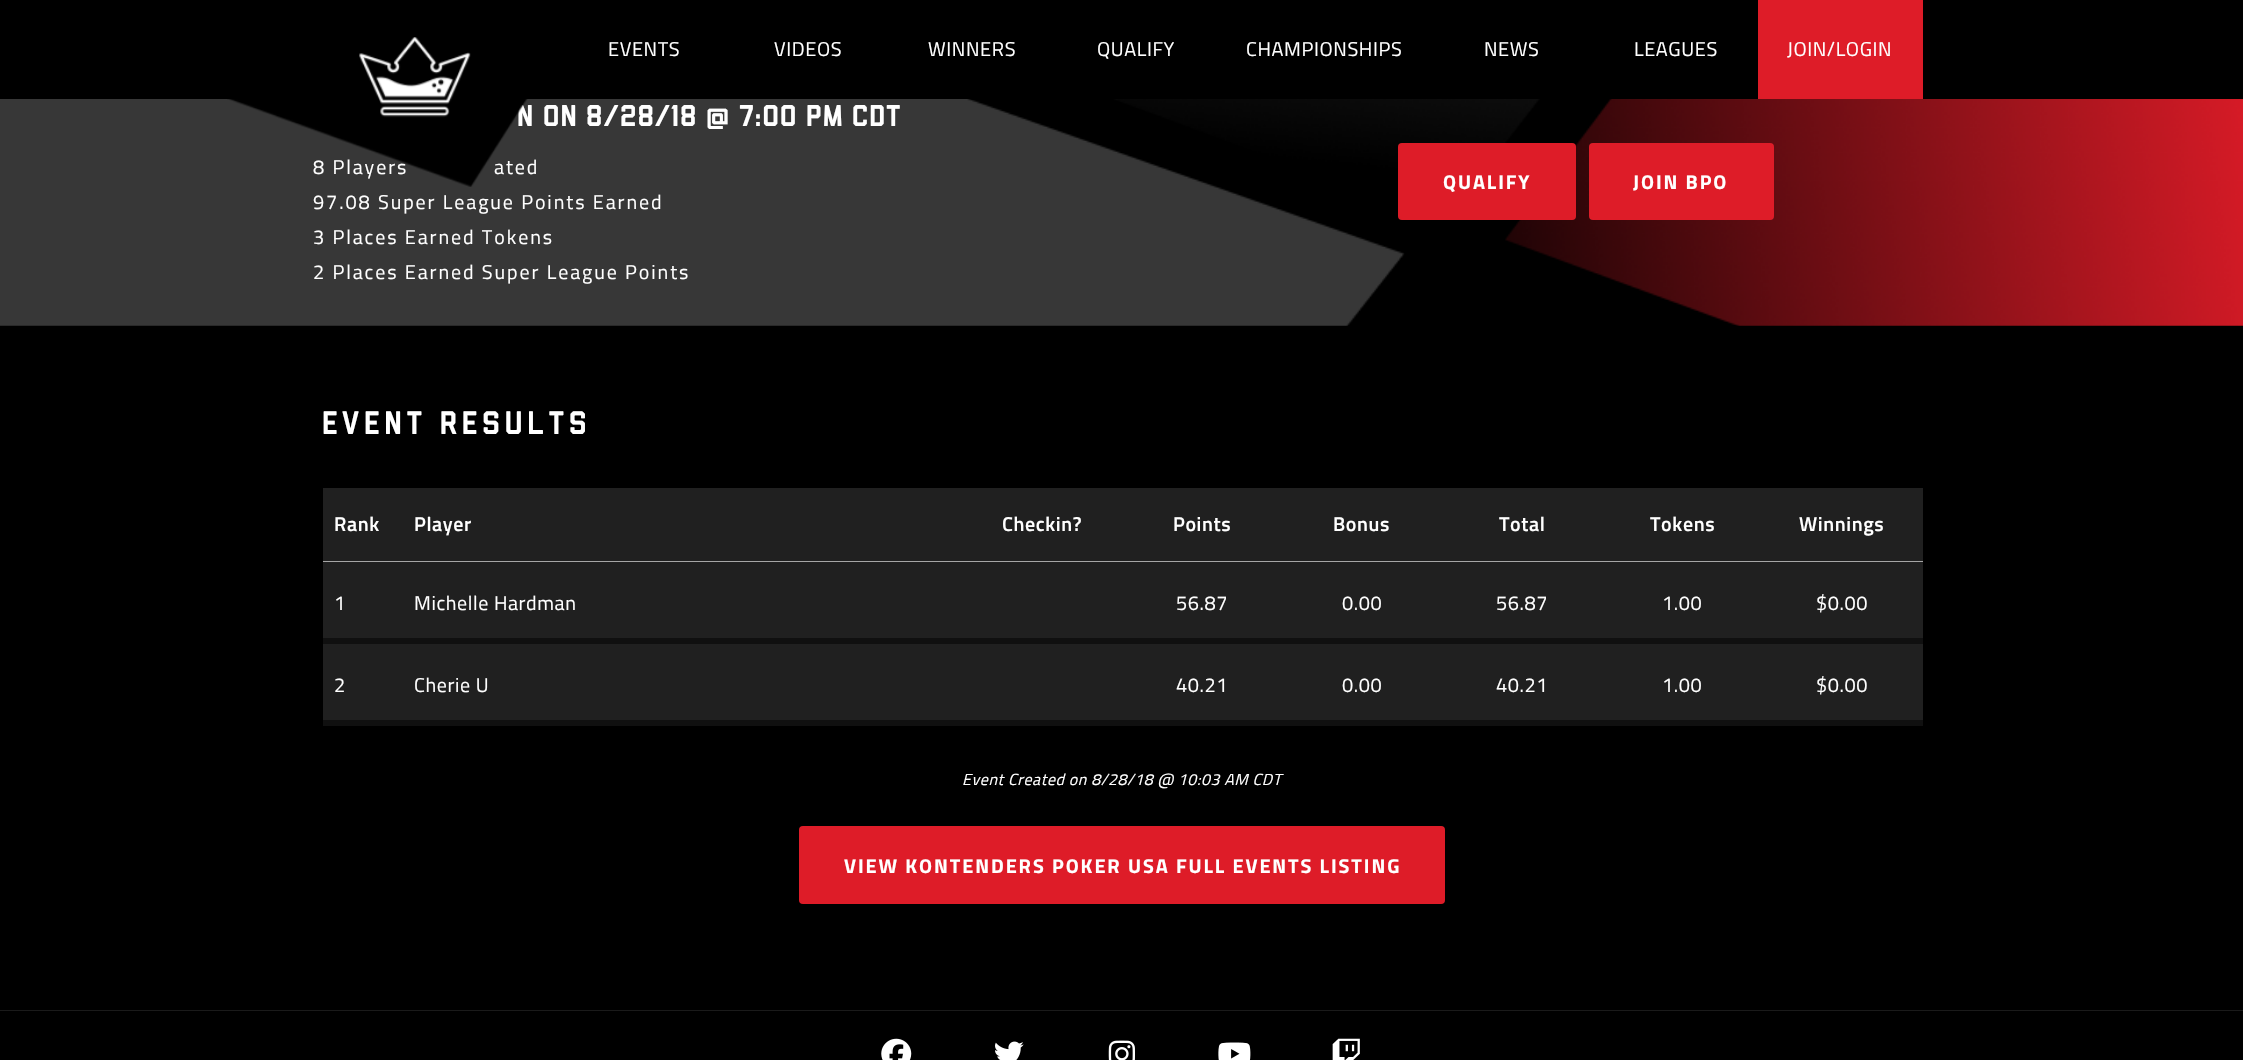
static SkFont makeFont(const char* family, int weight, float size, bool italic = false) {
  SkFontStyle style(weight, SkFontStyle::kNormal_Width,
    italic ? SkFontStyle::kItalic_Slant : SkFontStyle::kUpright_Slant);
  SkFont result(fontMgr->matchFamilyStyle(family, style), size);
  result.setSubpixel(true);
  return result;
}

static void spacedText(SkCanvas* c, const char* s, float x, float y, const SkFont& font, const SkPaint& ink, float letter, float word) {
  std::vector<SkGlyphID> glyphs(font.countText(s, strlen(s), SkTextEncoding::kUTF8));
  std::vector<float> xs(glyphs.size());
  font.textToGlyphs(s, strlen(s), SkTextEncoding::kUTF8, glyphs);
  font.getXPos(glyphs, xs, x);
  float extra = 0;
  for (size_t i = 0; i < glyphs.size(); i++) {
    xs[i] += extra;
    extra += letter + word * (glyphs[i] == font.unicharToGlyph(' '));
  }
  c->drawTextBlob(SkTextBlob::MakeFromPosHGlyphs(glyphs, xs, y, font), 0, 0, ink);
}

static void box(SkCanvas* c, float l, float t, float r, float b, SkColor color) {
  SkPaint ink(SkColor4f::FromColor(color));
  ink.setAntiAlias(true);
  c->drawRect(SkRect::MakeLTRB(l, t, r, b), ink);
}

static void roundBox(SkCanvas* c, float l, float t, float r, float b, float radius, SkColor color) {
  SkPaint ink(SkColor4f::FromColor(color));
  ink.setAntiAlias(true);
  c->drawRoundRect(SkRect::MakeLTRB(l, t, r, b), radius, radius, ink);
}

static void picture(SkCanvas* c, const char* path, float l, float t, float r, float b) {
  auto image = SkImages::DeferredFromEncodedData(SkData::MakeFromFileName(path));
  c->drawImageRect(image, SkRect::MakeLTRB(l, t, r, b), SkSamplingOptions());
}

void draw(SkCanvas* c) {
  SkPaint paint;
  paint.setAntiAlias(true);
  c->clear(0xff000000);
  picture(c, "img_02.png", 0, 99, 2243, 326);
  SkFont face1 = makeFont("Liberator", 500, 30);
  paint.setColor(0xffffffff);
  spacedText(c, "n on 8/28/18 @ 7:00 PM CDT", 517, 126, face1, paint, 1.25f, 0);
  SkFont face2 = makeFont("Titillium Web", 400, 20);
  spacedText(c, "8 Players", 313, 174, face2, paint, 1.9f, 0);
  spacedText(c, "ated", 494, 174, face2, paint, 1.9f, 0);
  picture(c, "img_01.png", 227, 37, 528, 187);
  spacedText(c, "EVENTS", 608, 56, face2, paint, 0.6f, 0);
  spacedText(c, "VIDEOS", 774, 56, face2, paint, 0.6f, 0);
  spacedText(c, "WINNERS", 928, 56, face2, paint, 0.6f, 0);
  spacedText(c, "QUALIFY", 1097, 56, face2, paint, 0.6f, 0);
  spacedText(c, "CHAMPIONSHIPS", 1246, 56, face2, paint, 0.6f, 0);
  spacedText(c, "NEWS", 1484, 56, face2, paint, 0.6f, 0);
  spacedText(c, "LEAGUES", 1634, 56, face2, paint, 0.6f, 0);
  box(c, 1758, 0, 1923, 99, 0xffde1c28);
  spacedText(c, "JOIN/LOGIN", 1787, 56, face2, paint, 0.6f, 0);
  spacedText(c, "97.08 Super League Points Earned", 313, 209, face2, paint, 1.9f, 0);
  spacedText(c, "3 Places Earned Tokens", 313, 244, face2, paint, 1.9f, 0);
  spacedText(c, "2 Places Earned Super League Points", 313, 279, face2, paint, 1.9f, 0);
  roundBox(c, 1398, 143, 1576, 220, 4, 0xffde1c28);
  SkFont face3 = makeFont("Titillium Web", 700, 20);
  spacedText(c, "QUALIFY", 1443, 189, face3, paint, 1.9f, 0);
  roundBox(c, 1589, 143, 1774, 220, 4, 0xffde1c28);
  spacedText(c, "JOIN BPO", 1633, 189, face3, paint, 1.9f, 0);
  SkFont face4 = makeFont("Liberator", 500, 32.5f);
  spacedText(c, "EVENT RESULTS", 322, 434, face4, paint, 5, 0);
  box(c, 323, 488, 1923, 720, 0xff202020);
  SkFont face5 = makeFont("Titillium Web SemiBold", 600, 20);
  spacedText(c, "Rank", 334, 531, face5, paint, 0.6f, 0);
  spacedText(c, "Player", 414, 531, face5, paint, 0.6f, 0);
  spacedText(c, "Checkin?", 1002, 531, face5, paint, 0.6f, 0);
  spacedText(c, "Points", 1173, 531, face5, paint, 0.6f, 0);
  spacedText(c, "Bonus", 1333, 531, face5, paint, 0.6f, 0);
  spacedText(c, "Total", 1499, 531, face5, paint, 0.6f, 0);
  spacedText(c, "Tokens", 1650, 531, face5, paint, 0.6f, 0);
  box(c, 323, 561, 1923, 562, 0xffa6a6a6);
  spacedText(c, "Winnings", 1799, 531, face5, paint, 0.6f, 0);
  spacedText(c, "1", 334, 610, face2, paint, 0.6f, 0);
  box(c, 323, 638, 1923, 644, 0xff101010);
  spacedText(c, "Michelle Hardman", 414, 610, face2, paint, 0.6f, 0);
  spacedText(c, "56.87", 1176, 610, face2, paint, 0.6f, 0);
  spacedText(c, "0.00", 1342, 610, face2, paint, 0.6f, 0);
  spacedText(c, "56.87", 1496, 610, face2, paint, 0.6f, 0);
  spacedText(c, "1.00", 1662, 610, face2, paint, 0.6f, 0);
  spacedText(c, "$0.00", 1816, 610, face2, paint, 0.6f, 0);
  spacedText(c, "2", 334, 692, face2, paint, 0.6f, 0);
  box(c, 323, 720, 1923, 726, 0xff101010);
  spacedText(c, "Cherie U", 414, 692, face2, paint, 0.6f, 0);
  spacedText(c, "40.21", 1176, 692, face2, paint, 0.6f, 0);
  spacedText(c, "0.00", 1342, 692, face2, paint, 0.6f, 0);
  spacedText(c, "40.21", 1496, 692, face2, paint, 0.6f, 0);
  spacedText(c, "1.00", 1662, 692, face2, paint, 0.6f, 0);
  spacedText(c, "$0.00", 1816, 692, face2, paint, 0.6f, 0);
  SkFont face6 = makeFont("Titillium Web", 400, 16, true);
  spacedText(c, "Event Created on 8/28/18 @ 10:03 AM CDT", 962, 785, face6, paint, 0.6f, 0);
  roundBox(c, 799, 826, 1445, 904, 4, 0xffde1c28);
  spacedText(c, "VIEW KONTENDERS POKER USA FULL EVENTS LISTING", 844, 873, face3, paint, 1.9f, 0);
  box(c, 0, 1010, 2243, 1011, 0xff1a1a1a);
  picture(c, "img_03.png", 881, 1038, 912, 1060);
  picture(c, "img_04.png", 995, 1041, 1024, 1060);
  picture(c, "img_05.png", 1108, 1040, 1135, 1060);
  picture(c, "img_06.png", 1218, 1042, 1251, 1060);
  picture(c, "img_07.png", 1332, 1038, 1360, 1060);
}
